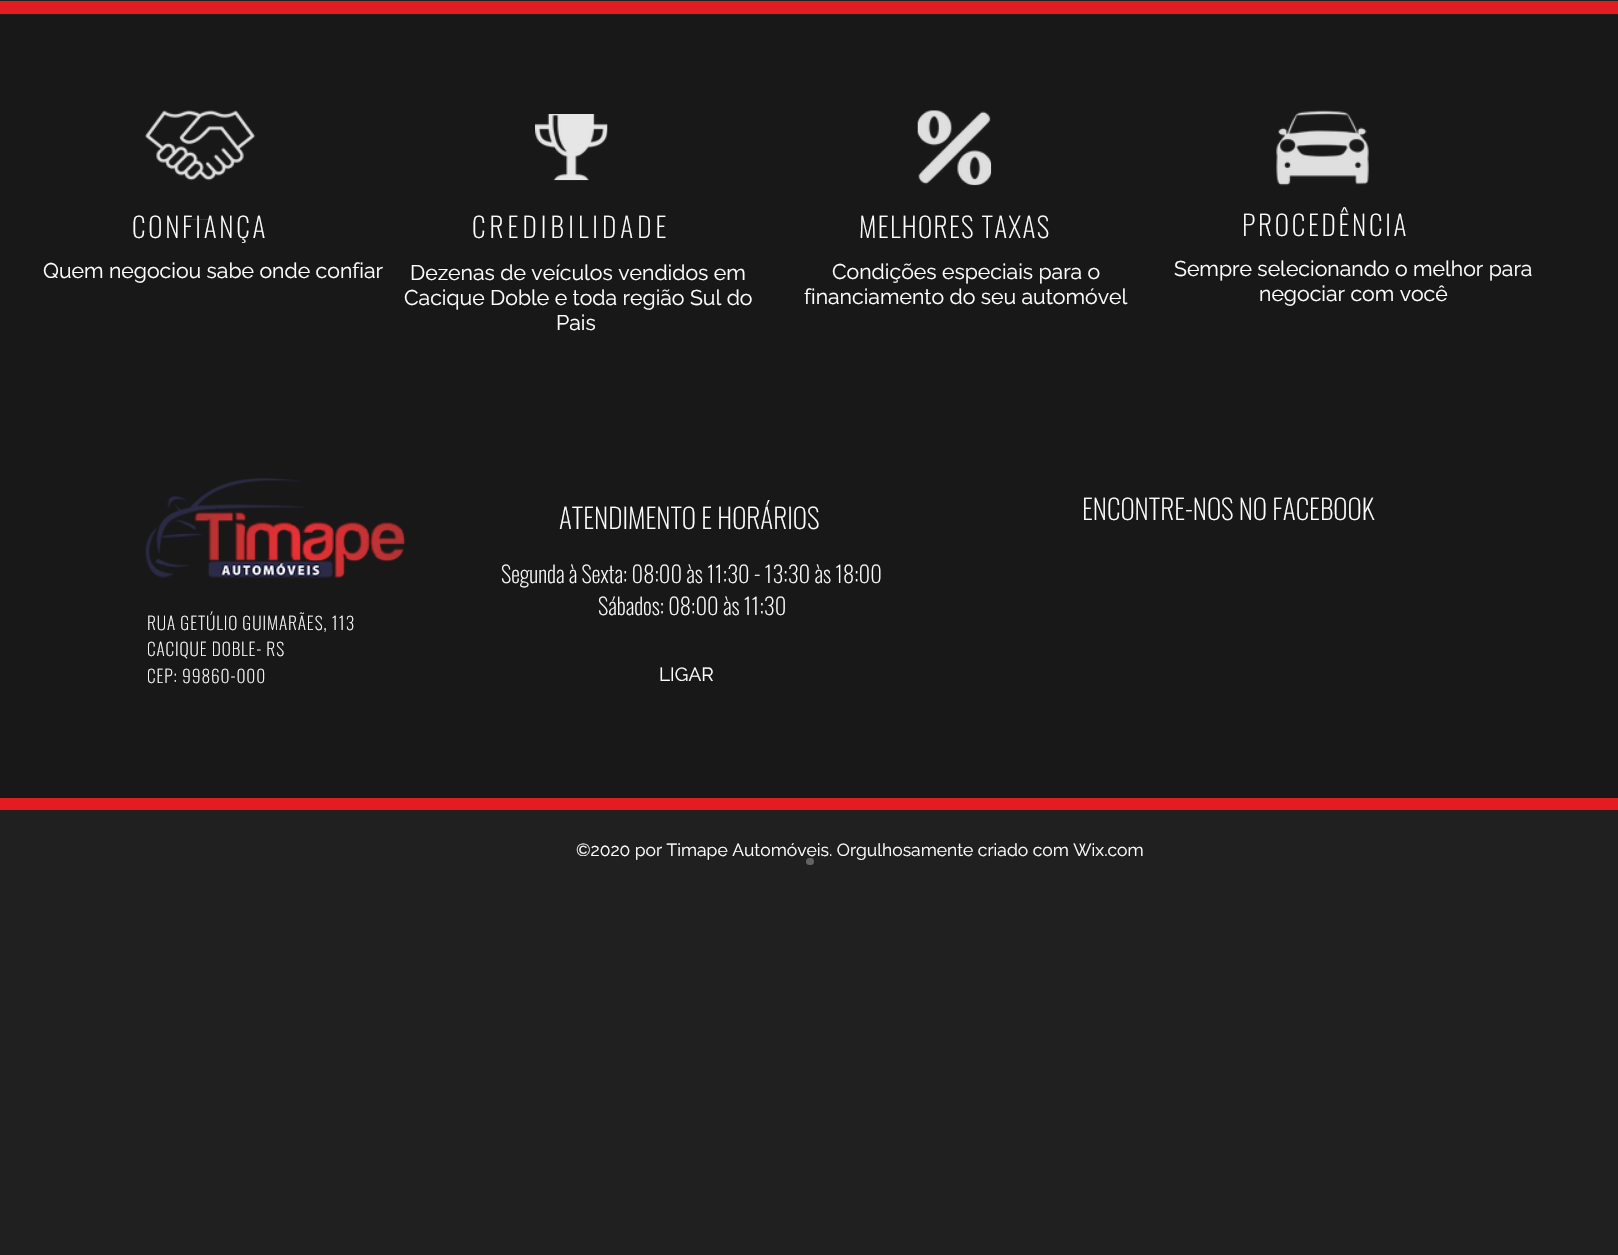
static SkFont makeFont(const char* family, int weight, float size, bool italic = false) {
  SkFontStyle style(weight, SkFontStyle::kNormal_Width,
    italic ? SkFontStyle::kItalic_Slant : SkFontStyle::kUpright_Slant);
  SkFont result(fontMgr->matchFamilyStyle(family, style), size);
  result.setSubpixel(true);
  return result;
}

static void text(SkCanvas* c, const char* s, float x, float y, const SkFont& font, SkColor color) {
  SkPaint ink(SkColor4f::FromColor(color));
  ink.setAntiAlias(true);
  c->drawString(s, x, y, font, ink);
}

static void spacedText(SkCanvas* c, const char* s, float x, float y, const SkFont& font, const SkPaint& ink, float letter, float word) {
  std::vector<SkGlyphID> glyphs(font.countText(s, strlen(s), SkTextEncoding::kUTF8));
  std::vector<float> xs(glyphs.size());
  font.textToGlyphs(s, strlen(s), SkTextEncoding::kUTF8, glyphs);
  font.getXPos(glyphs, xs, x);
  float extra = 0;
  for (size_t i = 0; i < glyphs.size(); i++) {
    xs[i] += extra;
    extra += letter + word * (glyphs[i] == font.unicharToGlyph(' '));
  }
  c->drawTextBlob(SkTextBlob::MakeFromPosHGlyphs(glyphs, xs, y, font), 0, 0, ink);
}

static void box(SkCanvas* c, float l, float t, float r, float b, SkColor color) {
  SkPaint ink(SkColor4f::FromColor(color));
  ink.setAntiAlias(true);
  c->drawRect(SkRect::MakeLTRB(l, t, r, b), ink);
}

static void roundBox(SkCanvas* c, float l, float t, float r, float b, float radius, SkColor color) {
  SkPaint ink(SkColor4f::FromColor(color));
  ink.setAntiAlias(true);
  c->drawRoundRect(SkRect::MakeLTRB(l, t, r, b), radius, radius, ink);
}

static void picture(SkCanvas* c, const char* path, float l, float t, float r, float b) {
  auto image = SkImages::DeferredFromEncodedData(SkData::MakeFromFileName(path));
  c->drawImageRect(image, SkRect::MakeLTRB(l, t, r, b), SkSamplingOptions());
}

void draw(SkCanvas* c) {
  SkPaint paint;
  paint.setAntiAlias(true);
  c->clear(0xff202020);
  box(c, 0, 1, 1618, 14, 0xffe21c21);
  box(c, 0, 15, 1618, 798, 0xff181818);
  picture(c, "img_01.png", 145, 110, 256, 220);
  picture(c, "img_02.png", 535, 114, 608, 181);
  picture(c, "img_03.png", 917, 110, 992, 186);
  picture(c, "img_04.png", 1276, 110, 1369, 186);
  SkFont face1 = makeFont("Oswald", 200, 27.5f);
  paint.setColor(0xffffffff);
  spacedText(c, "CONFIANÇA", 132, 238, face1, paint, 2.75f, 0);
  spacedText(c, "CREDIBILIDADE", 472, 238, face1, paint, 4.1f, 0);
  spacedText(c, "MELHORES TAXAS", 859, 238, face1, paint, 1.4f, 0);
  spacedText(c, "PROCEDÊNCIA", 1242, 236, face1, paint, 2.75f, 0);
  SkFont face2 = makeFont("Raleway", 400, 21.25f);
  text(c, "Quem negociou sabe onde confiar", 43, 278, face2, 0xffffffff);
  text(c, "Dezenas de veículos vendidos em", 410, 280, face2, 0xffffffff);
  text(c, "Cacique Doble e toda região Sul do", 404, 305, face2, 0xffffffff);
  text(c, "Pais", 556, 330, face2, 0xffffffff);
  text(c, "Condições especiais para o", 832, 279, face2, 0xffffffff);
  text(c, "financiamento do seu automóvel", 804, 304, face2, 0xffffffff);
  text(c, "Sempre selecionando o melhor para", 1174, 276, face2, 0xffffffff);
  text(c, "negociar com você", 1259, 301, face2, 0xffffffff);
  picture(c, "img_05.png", 145, 477, 406, 578);
  text(c, "ATENDIMENTO E HORÁRIOS", 559, 529, face1, 0xffffffff);
  text(c, "ENCONTRE-NOS NO FACEBOOK", 1082, 520, face1, 0xffffffff);
  SkFont face3 = makeFont("Oswald", 200, 22.5f);
  text(c, "Segunda à Sexta: 08:00 às 11:30 - 13:30 às 18:00", 501, 583, face3, 0xffffffff);
  text(c, "Sábados: 08:00 às 11:30", 598, 615, face3, 0xffffffff);
  SkFont face4 = makeFont("Oswald", 200, 17.5f);
  spacedText(c, "RUA GETÚLIO GUIMARÃES, 113", 147, 630, face4, paint, 0.9f, 0);
  spacedText(c, "CACIQUE DOBLE- RS", 147, 656, face4, paint, 0.9f, 0);
  spacedText(c, "CEP: 99860-000", 147, 683, face4, paint, 0.9f, 0);
  SkFont face5 = makeFont("Raleway", 400, 19);
  text(c, "LIGAR", 659, 681, face5, 0xffffffff);
  roundBox(c, 806, 858, 814, 865, 3.5f, 0xff636363);
  box(c, 0, 798, 1618, 810, 0xffe21c21);
  SkFont face6 = makeFont("Raleway", 400, 17.5f);
  text(c, "©2020 por Timape Automóveis. Orgulhosamente criado com Wix.com", 576, 856, face6, 0xffffffff);
}
